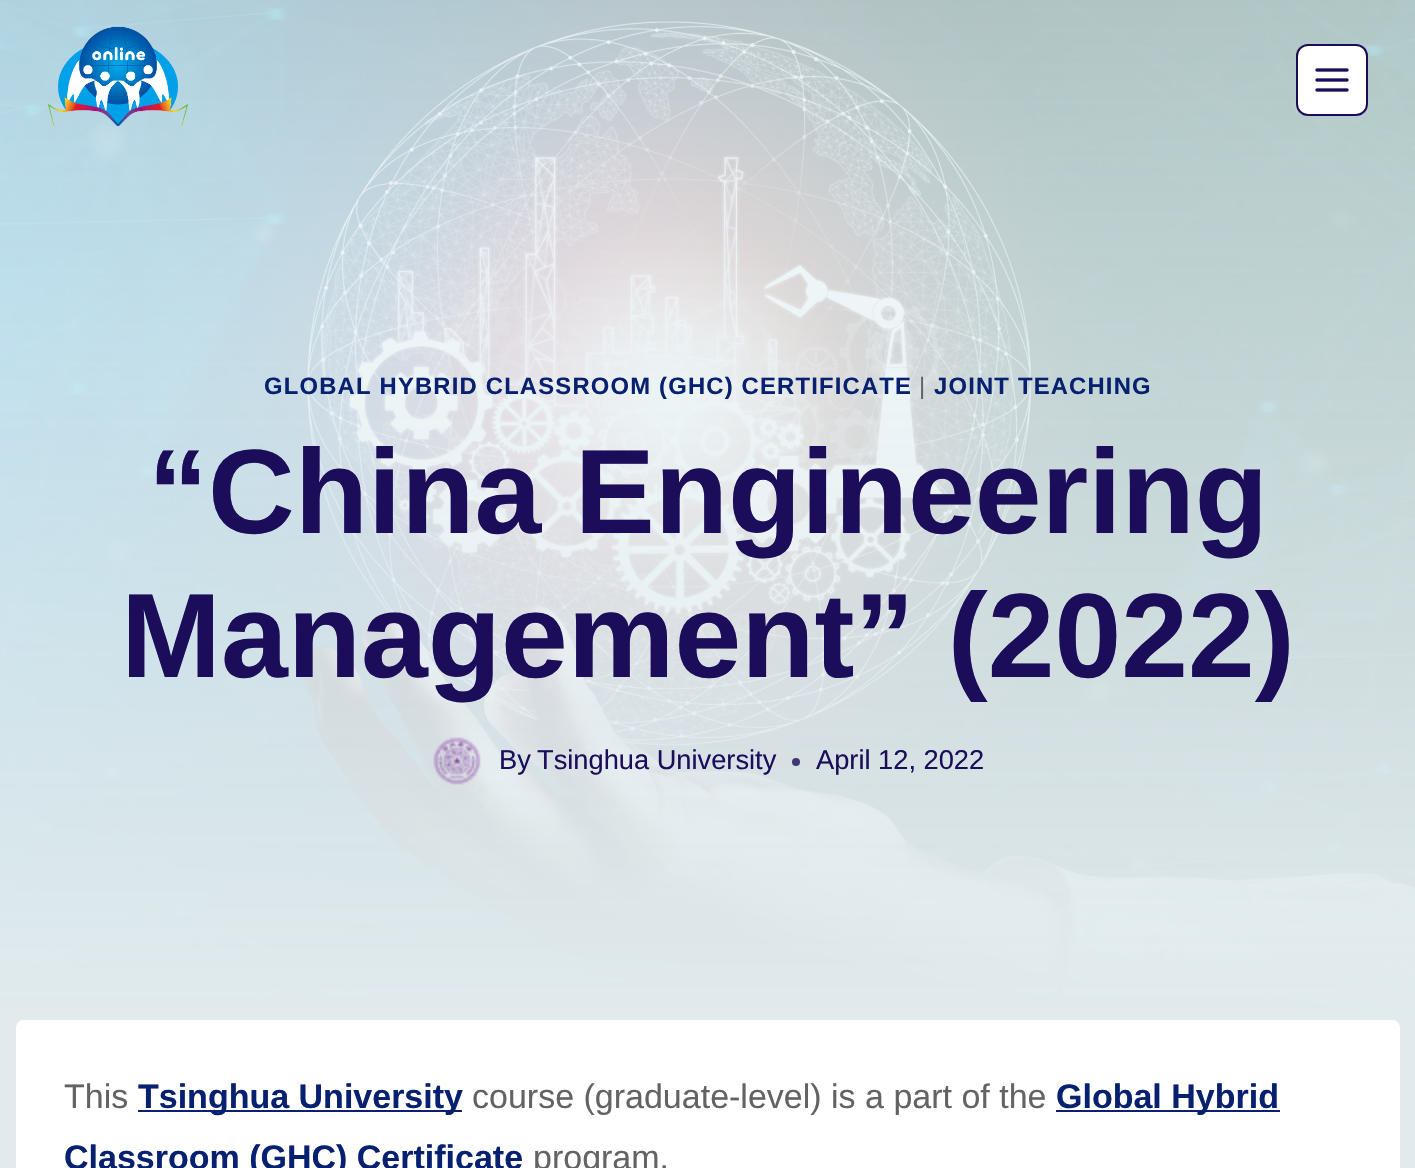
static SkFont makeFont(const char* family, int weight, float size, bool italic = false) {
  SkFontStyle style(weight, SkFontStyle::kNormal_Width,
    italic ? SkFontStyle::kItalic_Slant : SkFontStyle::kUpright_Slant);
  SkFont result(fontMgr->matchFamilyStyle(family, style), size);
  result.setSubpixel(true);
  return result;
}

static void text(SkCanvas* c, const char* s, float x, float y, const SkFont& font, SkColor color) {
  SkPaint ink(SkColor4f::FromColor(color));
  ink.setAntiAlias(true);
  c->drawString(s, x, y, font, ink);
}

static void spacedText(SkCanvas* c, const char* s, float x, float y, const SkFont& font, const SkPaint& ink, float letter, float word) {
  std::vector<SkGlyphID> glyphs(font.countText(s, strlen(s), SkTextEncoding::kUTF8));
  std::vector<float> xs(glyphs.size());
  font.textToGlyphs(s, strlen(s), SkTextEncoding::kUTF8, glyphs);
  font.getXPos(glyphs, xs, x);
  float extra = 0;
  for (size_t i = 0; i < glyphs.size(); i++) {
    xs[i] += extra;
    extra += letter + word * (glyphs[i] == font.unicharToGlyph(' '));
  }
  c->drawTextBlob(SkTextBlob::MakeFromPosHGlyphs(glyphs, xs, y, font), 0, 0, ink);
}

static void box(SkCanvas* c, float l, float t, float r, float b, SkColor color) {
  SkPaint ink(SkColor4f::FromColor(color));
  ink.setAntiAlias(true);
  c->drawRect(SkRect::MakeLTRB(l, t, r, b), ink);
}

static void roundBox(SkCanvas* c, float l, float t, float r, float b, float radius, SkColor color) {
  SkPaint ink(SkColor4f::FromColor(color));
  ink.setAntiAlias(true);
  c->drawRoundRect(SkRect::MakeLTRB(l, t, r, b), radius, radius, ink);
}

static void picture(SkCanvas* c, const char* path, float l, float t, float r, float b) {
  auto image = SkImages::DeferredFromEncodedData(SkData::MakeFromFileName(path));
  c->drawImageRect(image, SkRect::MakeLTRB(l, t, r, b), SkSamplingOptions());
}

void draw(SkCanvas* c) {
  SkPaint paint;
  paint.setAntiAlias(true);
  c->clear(0xffe1ebee);
  picture(c, "img_03.png", 0, 0, 1415, 1020);
  picture(c, "img_01.png", 48, 26, 188, 127);
  paint.setColor(0xffffffff);
  c->drawRoundRect(SkRect::MakeLTRB(1297, 45, 1367, 115), 11, 11, paint);
  paint.setStyle(SkPaint::kStroke_Style);
  paint.setStrokeWidth(2);
  paint.setColor(0xff1c0d5a);
  c->drawRoundRect(SkRect::MakeLTRB(1297, 45, 1367, 115), 11, 11, paint);
  picture(c, "img_02.png", 1315, 68, 1349, 92);
  SkFont face1 = makeFont("Liberation Sans", 700, 23.8f);
  paint.setStyle(SkPaint::kFill_Style);
  paint.setColor(0xff07206f);
  spacedText(c, "GLOBAL HYBRID CLASSROOM (GHC) CERTIFICATE", 264, 394, face1, paint, 1.2f, 0);
  SkFont face2 = makeFont("Liberation Sans", 400, 23.8f);
  paint.setColor(0xff636363);
  spacedText(c, "|", 919, 394, face2, paint, 1.2f, 0);
  paint.setColor(0xff07206f);
  spacedText(c, "JOINT TEACHING", 934, 394, face1, paint, 1.2f, 0);
  SkFont face3 = makeFont("Liberation Sans", 700, 120);
  text(c, "“China Engineering", 148, 533, face3, 0xff1c0d5a);
  text(c, "Management” (2022)", 121, 677, face3, 0xff1c0d5a);
  picture(c, "img_04.png", 433, 737, 481, 785);
  SkFont face4 = makeFont("Liberation Sans", 400, 27.25f);
  text(c, "By", 499, 769, face4, 0xff1c0d5a);
  text(c, "Tsinghua University", 537, 769, face4, 0xff1c0d5a);
  paint.setColor(0xff413776);
  c->drawCircle(796, 762, 4, paint);
  text(c, "April 12, 2022", 816, 769, face4, 0xff1c0d5a);
  roundBox(c, 16, 1020, 1400, 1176, 8, 0xffffffff);
  SkFont face5 = makeFont("Liberation Sans", 400, 34);
  text(c, "This", 64, 1108, face5, 0xff636363);
  box(c, 138, 1110, 462, 1112, 0xff07206f);
  SkFont face6 = makeFont("Liberation Sans", 700, 34);
  text(c, "Tsinghua University", 138, 1108, face6, 0xff07206f);
  text(c, "course (graduate-level) is a part of the", 472, 1108, face5, 0xff636363);
  box(c, 1056, 1110, 1280, 1112, 0xff07206f);
  text(c, "Global Hybrid", 1056, 1108, face6, 0xff07206f);
  text(c, "Classroom (GHC) Certificate", 64, 1169, face6, 0xff07206f);
  text(c, "program.", 533, 1169, face5, 0xff636363);
}
